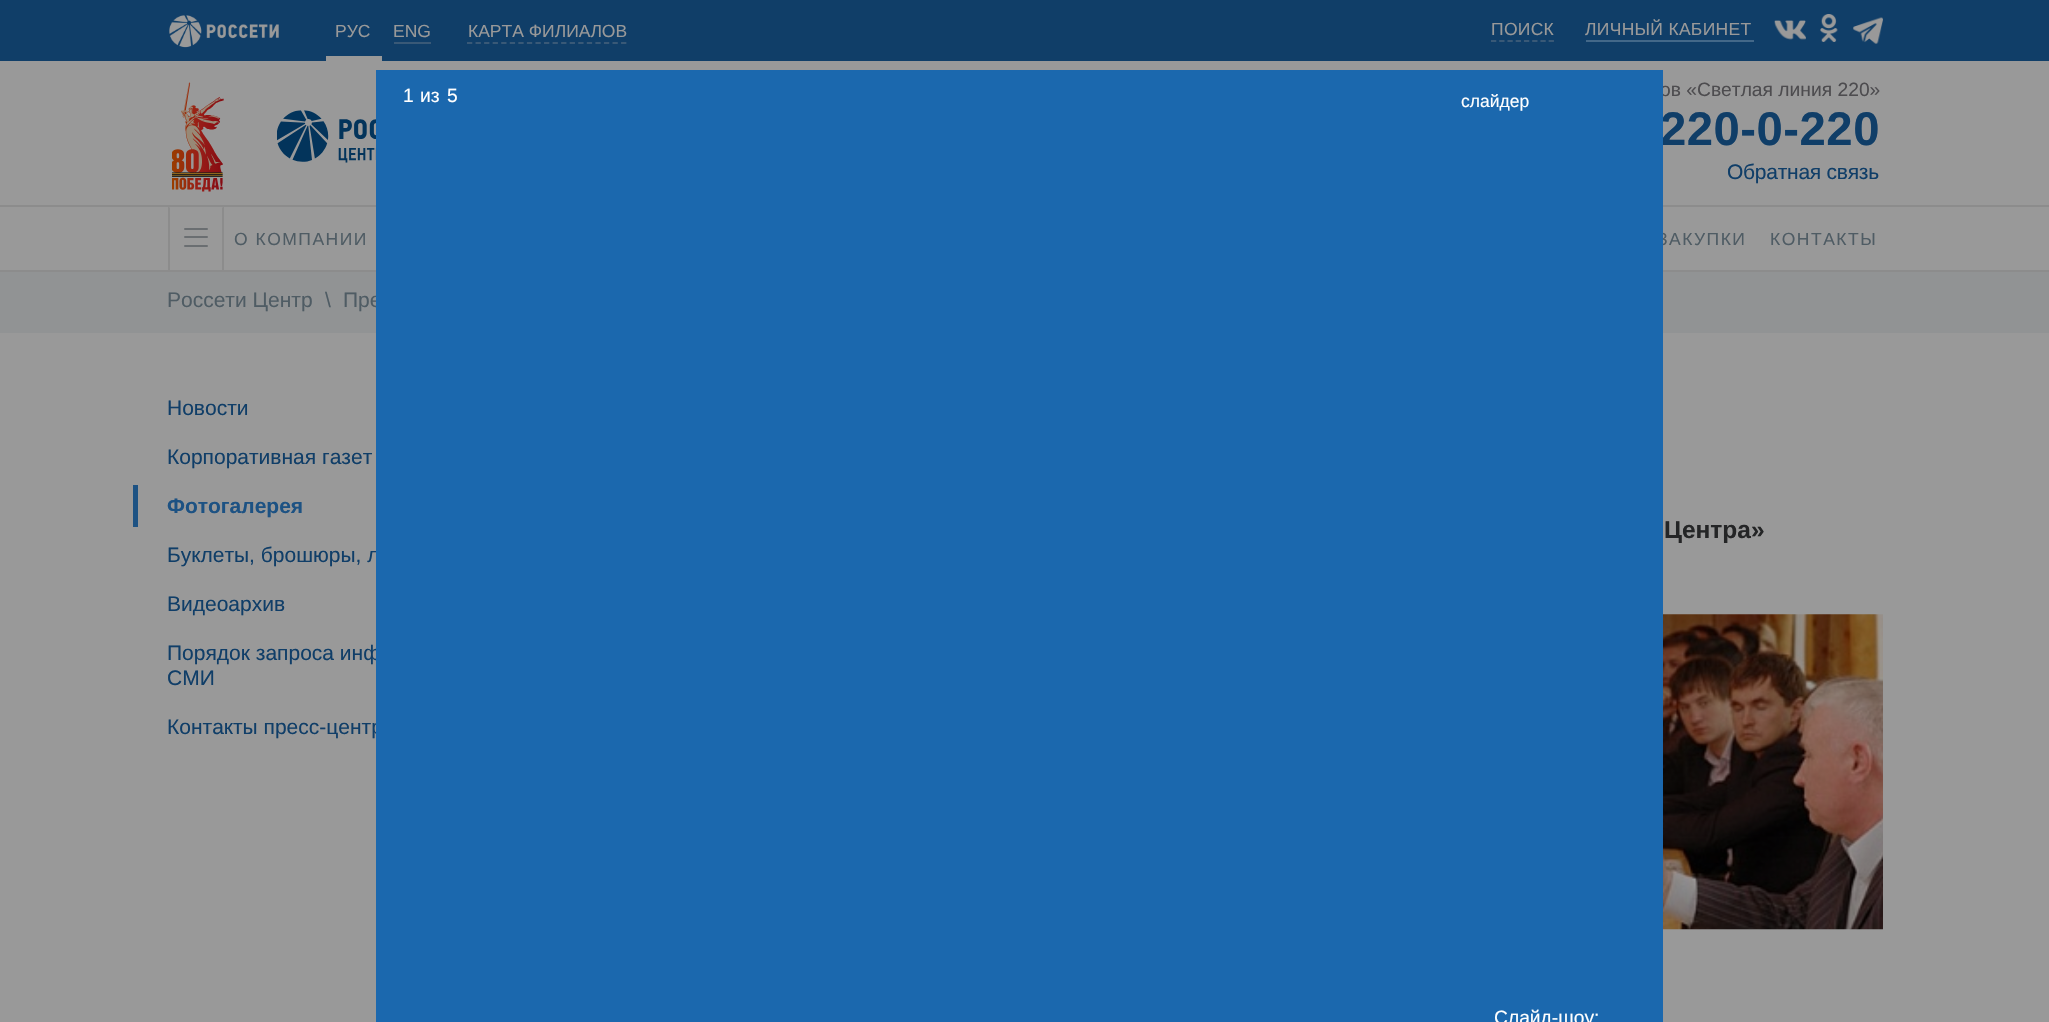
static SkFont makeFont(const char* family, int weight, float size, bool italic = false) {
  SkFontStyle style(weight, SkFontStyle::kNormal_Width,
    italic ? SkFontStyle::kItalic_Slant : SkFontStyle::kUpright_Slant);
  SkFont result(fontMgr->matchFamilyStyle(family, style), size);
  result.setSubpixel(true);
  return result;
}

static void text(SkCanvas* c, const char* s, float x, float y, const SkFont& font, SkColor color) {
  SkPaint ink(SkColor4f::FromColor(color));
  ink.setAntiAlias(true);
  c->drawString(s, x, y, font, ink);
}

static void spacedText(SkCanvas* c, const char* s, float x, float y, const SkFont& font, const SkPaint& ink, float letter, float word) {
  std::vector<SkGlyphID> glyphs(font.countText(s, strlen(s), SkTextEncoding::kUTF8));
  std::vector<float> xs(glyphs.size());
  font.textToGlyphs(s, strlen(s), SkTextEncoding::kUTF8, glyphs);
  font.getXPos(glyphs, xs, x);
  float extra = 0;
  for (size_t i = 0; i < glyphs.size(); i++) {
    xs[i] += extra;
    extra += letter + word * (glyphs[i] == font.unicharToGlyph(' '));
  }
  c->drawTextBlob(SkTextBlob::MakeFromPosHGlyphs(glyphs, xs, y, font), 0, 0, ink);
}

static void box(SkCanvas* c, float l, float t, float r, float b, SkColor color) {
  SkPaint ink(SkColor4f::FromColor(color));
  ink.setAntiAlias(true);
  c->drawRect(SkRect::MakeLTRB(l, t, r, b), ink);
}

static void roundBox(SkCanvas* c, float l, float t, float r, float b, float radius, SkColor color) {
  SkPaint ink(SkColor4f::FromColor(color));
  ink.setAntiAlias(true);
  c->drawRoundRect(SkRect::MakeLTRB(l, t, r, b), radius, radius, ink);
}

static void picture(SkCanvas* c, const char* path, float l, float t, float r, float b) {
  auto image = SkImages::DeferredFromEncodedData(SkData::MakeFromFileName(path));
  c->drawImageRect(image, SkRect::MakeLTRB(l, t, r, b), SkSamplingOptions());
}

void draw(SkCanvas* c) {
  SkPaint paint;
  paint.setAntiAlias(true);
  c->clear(0xff999999);
  box(c, 0, 0, 2049, 61, 0xff103e68);
  picture(c, "img_01.png", 169, 15, 279, 48);
  box(c, 326, 56, 382, 61, 0xff999999);
  SkFont face1 = makeFont("Liberation Sans", 400, 17.5f);
  text(c, "РУС", 335, 37, face1, 0xff999999);
  box(c, 394, 42, 431, 44, 0xff395977);
  text(c, "ENG", 393, 37, face1, 0xff999999);
  paint.setStyle(SkPaint::kStroke_Style);
  paint.setStrokeWidth(1.8f);
  paint.setColor(0xff395977);
  paint.setPathEffect(SkDashPathEffect::Make({{5.25f, 3.31f}}, 0));
  c->drawPath(SkPathBuilder().moveTo(467, 43).lineTo(626.5f, 43).detach(), paint);
  paint.setPathEffect(nullptr);
  text(c, "КАРТА ФИЛИАЛОВ", 468, 37, face1, 0xff999999);
  paint.setPathEffect(SkDashPathEffect::Make({{5.25f, 2.99f}}, 0));
  c->drawPath(SkPathBuilder().moveTo(1491, 41).lineTo(1554, 41).detach(), paint);
  paint.setPathEffect(nullptr);
  paint.setStyle(SkPaint::kFill_Style);
  paint.setColor(0xff999999);
  spacedText(c, "ПОИСК", 1491, 35, face1, paint, 0.3f, 0);
  box(c, 1586, 40, 1754, 42, 0xff436889);
  spacedText(c, "ЛИЧНЫЙ КАБИНЕТ", 1585, 35, face1, paint, 0.3f, 0);
  picture(c, "img_02.png", 1774, 20, 1806, 40);
  picture(c, "img_03.png", 1820, 14, 1838, 42);
  picture(c, "img_04.png", 1853, 17, 1883, 44);
  box(c, 0, 205, 2049, 207, 0xff8c8c8c);
  SkFont face2 = makeFont("Liberation Sans", 400, 19.25f);
  text(c, "ов «Светлая линия 220»", 1660, 96, face2, 0xff4d4c4f);
  SkFont face3 = makeFont("Liberation Sans", 700, 47.25f);
  paint.setColor(0xff103e68);
  spacedText(c, "220-0-220", 1660, 145, face3, paint, 0.5f, 0);
  box(c, 0, 270, 2049, 272, 0xff8c8c8c);
  paint.setColor(0xff4f5c64);
  spacedText(c, "ЗАКУПКИ", 1657, 245, face1, paint, 1.5f, 0);
  box(c, 0, 272, 2049, 333, 0xff919394);
  SkFont face4 = makeFont("Liberation Sans", 400, 21);
  text(c, "Пре", 343, 307, face4, 0xff4f5c64);
  text(c, "Буклеты, брошюры, л", 167, 562, face4, 0xff103e68);
  text(c, "Порядок запроса инф", 167, 660, face4, 0xff103e68);
  text(c, "Контакты пресс-центр", 167, 734, face4, 0xff103e68);
  box(c, 376, 70, 1663, 1022, 0xff1b68ae);
  text(c, "1", 403, 102, face2, 0xffffffff);
  text(c, "из", 420, 102, face2, 0xffffffff);
  text(c, "5", 447, 102, face2, 0xffffffff);
  text(c, "слайдер", 1461, 107, face1, 0xffffffff);
  text(c, "Слайд-шоу:", 1494, 1024, face2, 0xffffffff);
  picture(c, "img_05.png", 172, 82, 224, 192);
  picture(c, "img_06.png", 277, 110, 376, 163);
  paint.setColor(0xff103e68);
  spacedText(c, "Обратная связь", 1727, 179, face4, paint, -0.25f, 0);
  paint.setColor(0xff8c8c8c);
  c->drawPath(SkPathBuilder().moveTo(224, 206).lineTo(224, 270).lineTo(222, 270).lineTo(222, 208).close().detach(), paint);
  c->drawPath(SkPathBuilder().moveTo(168, 270).lineTo(168, 206).lineTo(170, 208).lineTo(170, 270).close().detach(), paint);
  roundBox(c, 184, 236, 208, 238, 1, 0xff6a6e71);
  roundBox(c, 184, 228, 208, 230, 1, 0xff6a6e71);
  roundBox(c, 184, 245, 208, 247, 1, 0xff6a6e71);
  paint.setColor(0xff4f5c64);
  spacedText(c, "О КОМПАНИИ", 234, 245, face1, paint, 1.5f, 0);
  spacedText(c, "КОНТАКТЫ", 1770, 245, face1, paint, 1.5f, 0);
  text(c, "Россети Центр", 167, 307, face4, 0xff4f5c64);
  text(c, "\\", 325, 307, face4, 0xff4f5c64);
  text(c, "Новости", 167, 415, face4, 0xff103e68);
  text(c, "Корпоративная газет", 167, 464, face4, 0xff103e68);
  box(c, 133, 485, 138, 527, 0xff1d5283);
  SkFont face5 = makeFont("Liberation Sans", 700, 21);
  text(c, "Фотогалерея", 167, 513, face5, 0xff1d5283);
  text(c, "Видеоархив", 167, 611, face4, 0xff103e68);
  text(c, "СМИ", 167, 685, face4, 0xff103e68);
  SkFont face6 = makeFont("Liberation Sans", 700, 24.5f);
  text(c, "Центра»", 1664, 538, face6, 0xff242526);
  picture(c, "img_07.png", 1663, 614, 1883, 930);
}
